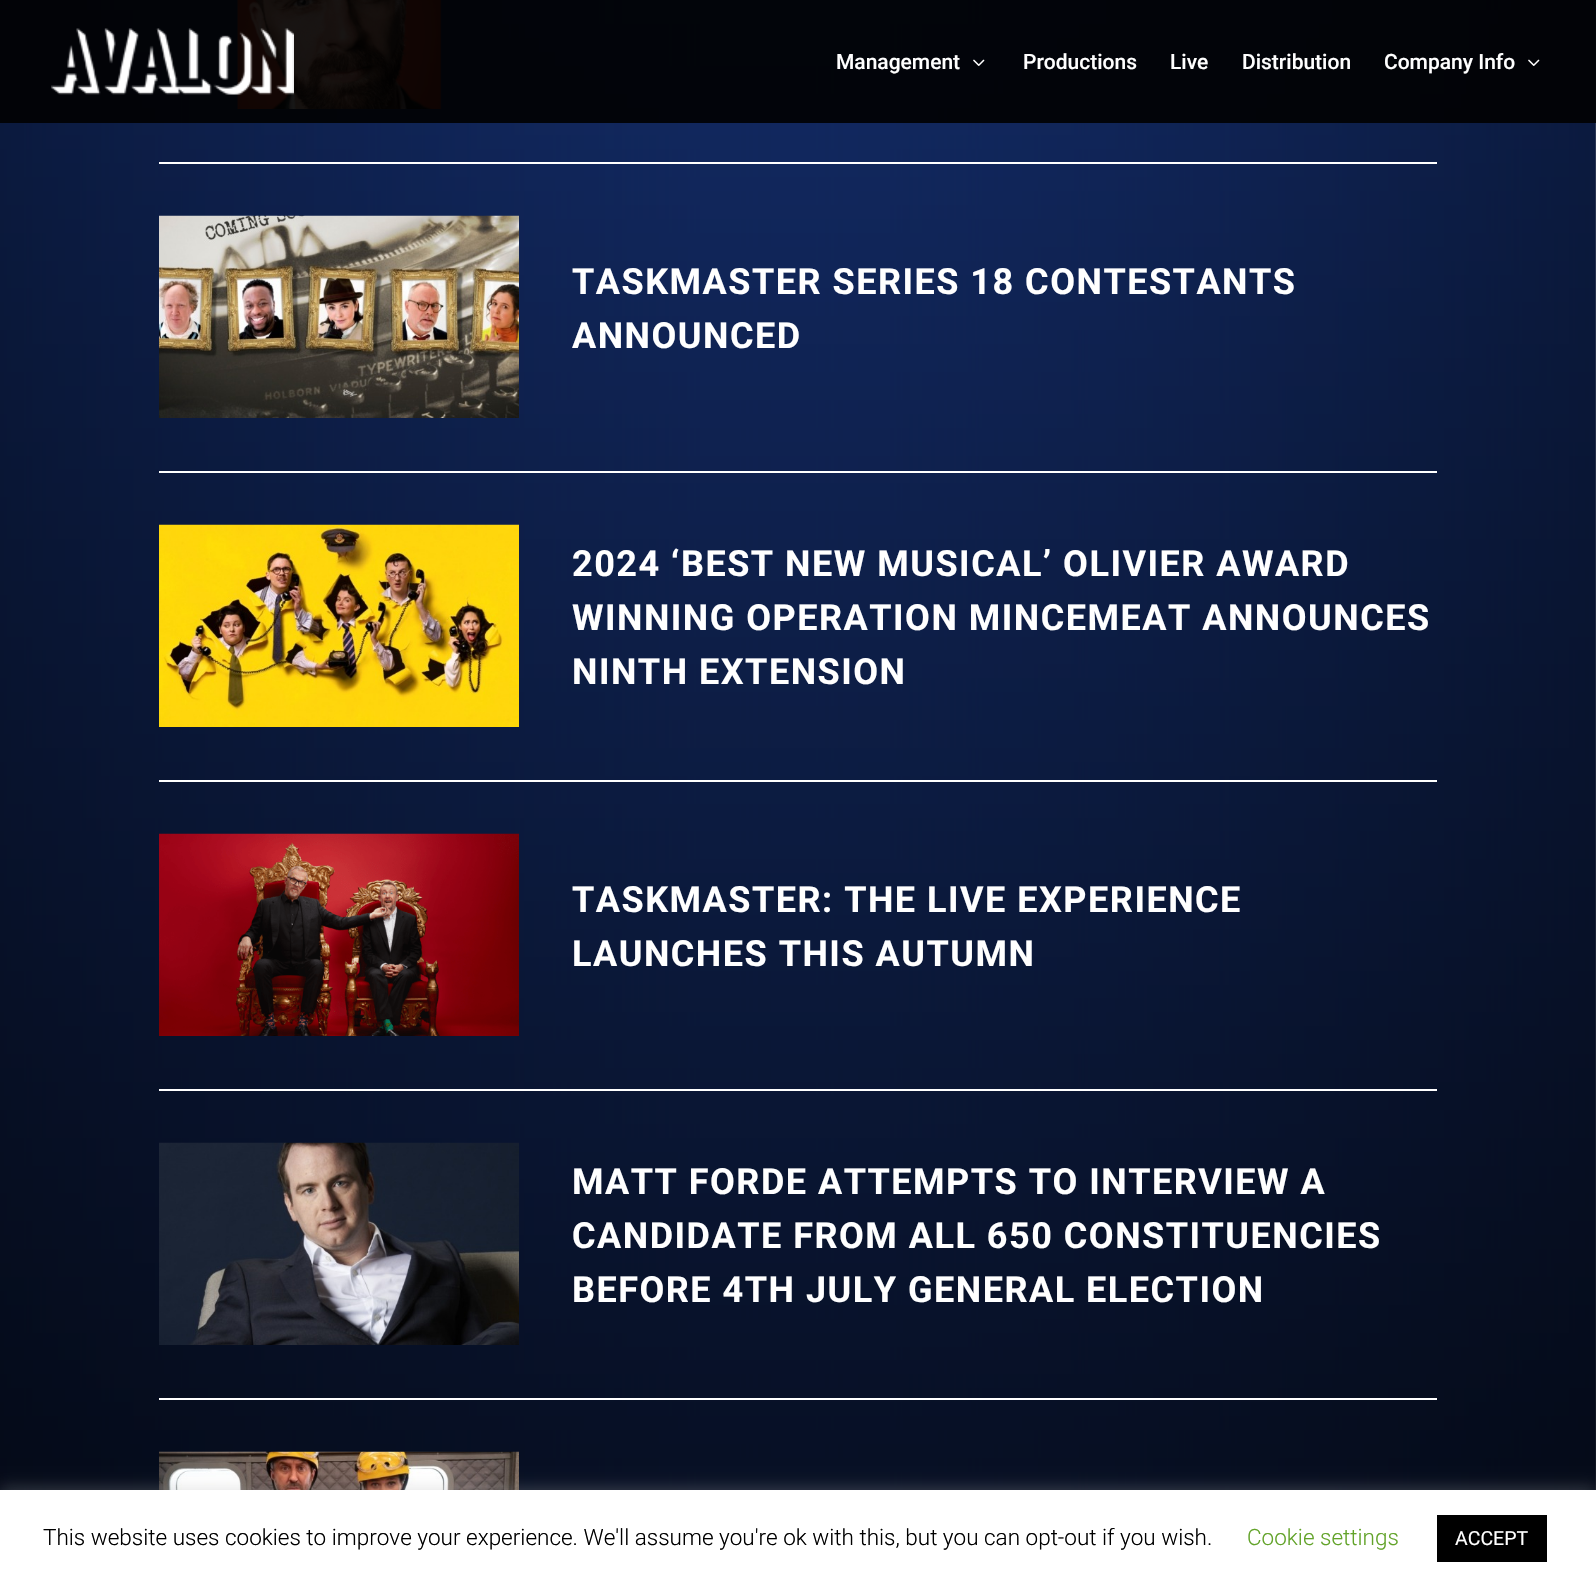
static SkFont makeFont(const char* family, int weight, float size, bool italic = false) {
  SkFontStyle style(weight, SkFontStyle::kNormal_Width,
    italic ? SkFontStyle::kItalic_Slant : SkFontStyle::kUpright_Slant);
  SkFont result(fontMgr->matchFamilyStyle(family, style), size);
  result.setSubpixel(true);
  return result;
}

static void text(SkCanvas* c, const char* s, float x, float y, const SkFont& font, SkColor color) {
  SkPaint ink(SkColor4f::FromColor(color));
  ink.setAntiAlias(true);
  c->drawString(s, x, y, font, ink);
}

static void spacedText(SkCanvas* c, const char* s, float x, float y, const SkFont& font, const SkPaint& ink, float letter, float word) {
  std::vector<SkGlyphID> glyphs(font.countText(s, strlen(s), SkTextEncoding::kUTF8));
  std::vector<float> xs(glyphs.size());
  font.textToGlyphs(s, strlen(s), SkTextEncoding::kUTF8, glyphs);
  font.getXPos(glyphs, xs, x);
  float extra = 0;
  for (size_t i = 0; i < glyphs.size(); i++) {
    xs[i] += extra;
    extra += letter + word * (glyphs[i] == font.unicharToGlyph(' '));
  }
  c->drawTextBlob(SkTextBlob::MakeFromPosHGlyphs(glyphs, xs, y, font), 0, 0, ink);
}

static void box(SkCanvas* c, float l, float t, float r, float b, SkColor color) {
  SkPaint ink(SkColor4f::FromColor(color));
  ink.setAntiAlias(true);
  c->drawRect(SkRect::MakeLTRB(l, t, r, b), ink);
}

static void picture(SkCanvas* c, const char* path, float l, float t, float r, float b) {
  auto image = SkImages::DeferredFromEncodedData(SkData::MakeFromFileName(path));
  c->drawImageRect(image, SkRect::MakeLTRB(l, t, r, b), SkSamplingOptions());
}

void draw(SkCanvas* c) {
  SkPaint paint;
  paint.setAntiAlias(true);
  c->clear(0xffffffff);
  picture(c, "img_01.png", 0, 0, 1596, 1490);
  {
    const SkColor colors[] = {0x00000000, 0xff000000};
    const float stops[] = {0, 1};
    const SkPoint ends[] = {{798, -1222}, {798, 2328}};
    paint.setShader(SkGradientShader::MakeLinear(ends, colors, stops, 2, SkTileMode::kClamp));
    paint.setAlpha(255);
  }
  c->drawRect(SkRect::MakeLTRB(0, 0, 1596, 1490), paint);
  picture(c, "img_05.png", 237, 0, 442, 109);
  box(c, 0, 0, 1596, 123, 0xe6000000);
  picture(c, "img_02.png", 51, 28, 294, 95);
  SkFont face1 = makeFont("Roboto", 500, 21);
  text(c, "Management", 836, 69, face1, 0xffffffff);
  picture(c, "img_03.png", 973, 59, 985, 66);
  text(c, "Productions", 1023, 69, face1, 0xffffffff);
  text(c, "Live", 1170, 69, face1, 0xffffffff);
  text(c, "Distribution", 1242, 69, face1, 0xffffffff);
  text(c, "Company Info", 1384, 69, face1, 0xffffffff);
  picture(c, "img_04.png", 1528, 59, 1540, 66);
  box(c, 159, 162, 1437, 164, 0xffffffff);
  box(c, 159, 471, 1437, 473, 0xffffffff);
  picture(c, "img_06.png", 159, 215, 519, 418);
  SkFont face2 = makeFont("Roboto", 700, 36);
  paint.setShader(nullptr);
  paint.setColor(0xffffffff);
  spacedText(c, "TASKMASTER SERIES 18 CONTESTANTS", 572, 294, face2, paint, 1.5f, 0);
  spacedText(c, "ANNOUNCED", 572, 348, face2, paint, 1.5f, 0);
  box(c, 159, 780, 1437, 782, 0xffffffff);
  picture(c, "img_07.png", 159, 524, 519, 727);
  spacedText(c, "2024 ‘BEST NEW MUSICAL’ OLIVIER AWARD", 572, 576, face2, paint, 1.5f, 0);
  spacedText(c, "WINNING OPERATION MINCEMEAT ANNOUNCES", 572, 630, face2, paint, 1.5f, 0);
  spacedText(c, "NINTH EXTENSION", 572, 684, face2, paint, 1.5f, 0);
  box(c, 159, 1089, 1437, 1091, 0xffffffff);
  picture(c, "img_08.png", 159, 833, 519, 1036);
  spacedText(c, "TASKMASTER: THE LIVE EXPERIENCE", 572, 912, face2, paint, 1.5f, 0);
  spacedText(c, "LAUNCHES THIS AUTUMN", 572, 966, face2, paint, 1.5f, 0);
  box(c, 159, 1398, 1437, 1400, 0xffffffff);
  picture(c, "img_09.png", 159, 1142, 519, 1345);
  spacedText(c, "MATT FORDE ATTEMPTS TO INTERVIEW A", 572, 1194, face2, paint, 1.5f, 0);
  spacedText(c, "CANDIDATE FROM ALL 650 CONSTITUENCIES", 572, 1248, face2, paint, 1.5f, 0);
  spacedText(c, "BEFORE 4TH JULY GENERAL ELECTION", 572, 1302, face2, paint, 1.5f, 0);
  picture(c, "img_10.png", 159, 1451, 519, 1490);
  paint.setColor(0x4dacabab);
  paint.setMaskFilter(SkMaskFilter::MakeBlur(kNormal_SkBlurStyle, 7.5f));
  c->drawRect(SkRect::MakeLTRB(0, 1488, 1596, 1586), paint);
  paint.setMaskFilter(nullptr);
  box(c, 0, 1490, 1596, 1586, 0xffffffff);
  SkFont face3 = makeFont("Roboto", 300, 22.5f);
  text(c, "This website uses cookies to improve your experience. We'll assume you're ok with this, but you can opt-out if you wish.", 43, 1545, face3, 0xff000000);
  text(c, "Cookie settings", 1247, 1545, face3, 0xff62a329);
  box(c, 1437, 1515, 1547, 1562, 0xff000000);
  SkFont face4 = makeFont("Roboto", 400, 19.5f);
  text(c, "ACCEPT", 1455, 1545, face4, 0xffffffff);
}
